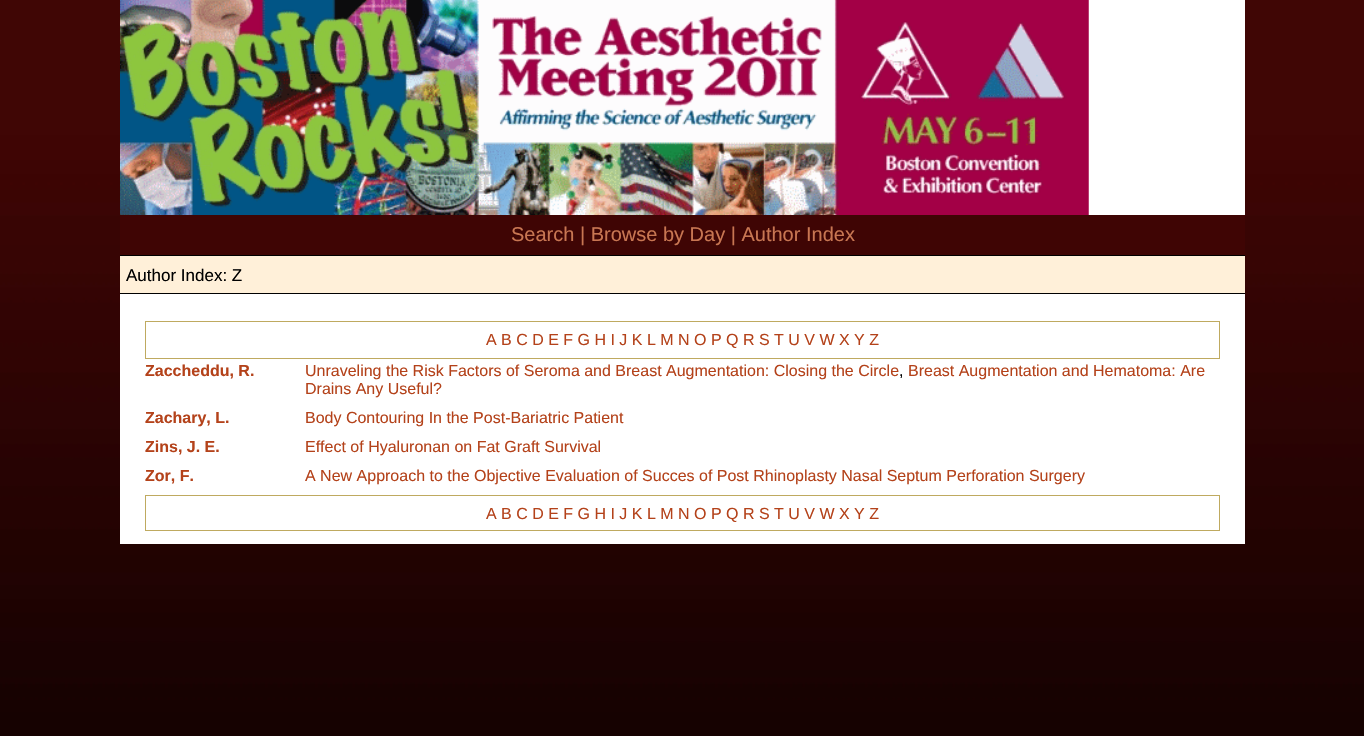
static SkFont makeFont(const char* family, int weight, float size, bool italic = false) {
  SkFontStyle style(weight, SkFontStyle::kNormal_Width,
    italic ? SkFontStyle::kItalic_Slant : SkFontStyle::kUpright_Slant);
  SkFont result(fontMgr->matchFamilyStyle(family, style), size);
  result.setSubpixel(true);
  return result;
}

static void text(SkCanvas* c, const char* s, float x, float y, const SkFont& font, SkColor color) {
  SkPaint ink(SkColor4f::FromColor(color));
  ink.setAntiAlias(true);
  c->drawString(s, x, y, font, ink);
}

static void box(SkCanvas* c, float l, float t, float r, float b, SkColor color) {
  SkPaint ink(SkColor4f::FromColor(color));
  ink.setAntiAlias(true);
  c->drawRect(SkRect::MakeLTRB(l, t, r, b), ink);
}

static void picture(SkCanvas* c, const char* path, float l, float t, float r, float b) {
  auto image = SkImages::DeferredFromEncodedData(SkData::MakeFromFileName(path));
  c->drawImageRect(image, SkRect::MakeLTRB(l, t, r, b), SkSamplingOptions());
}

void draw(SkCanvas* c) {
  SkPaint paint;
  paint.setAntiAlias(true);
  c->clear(0xffffffff);
  picture(c, "img_01.png", 0, 0, 1364, 736);
  box(c, 120, 0, 1245, 544, 0xffffffff);
  picture(c, "img_02.png", 120, 0, 1089, 215);
  box(c, 120, 215, 1245, 255, 0xff3f0504);
  SkFont face1 = makeFont("Liberation Sans", 400, 20);
  text(c, "Search | Browse by Day | Author Index", 511, 241, face1, 0xffc87652);
  box(c, 120, 256, 1245, 293, 0xfffff0d9);
  box(c, 120, 255, 1245, 256, 0xff000000);
  box(c, 120, 293, 1245, 294, 0xff000000);
  SkFont face2 = makeFont("Liberation Sans", 400, 17);
  text(c, "Author Index: Z", 126, 281, face2, 0xff000000);
  paint.setStyle(SkPaint::kStroke_Style);
  paint.setStrokeWidth(1);
  paint.setColor(0xffbfaa60);
  c->drawRect(SkRect::MakeLTRB(145.5f, 321.5f, 1219.5f, 358.5f), paint);
  SkFont face3 = makeFont("Liberation Sans", 400, 16);
  text(c, "A B C D E F G H I J K L M N O P Q R S T U V W X Y Z", 486, 345, face3, 0xffb4421a);
  SkFont face4 = makeFont("Liberation Sans", 700, 16);
  text(c, "Zaccheddu, R.", 145, 376, face4, 0xffb4421a);
  text(c, "Unraveling the Risk Factors of Seroma and Breast Augmentation: Closing the Circle", 305, 376, face3, 0xffb4421a);
  text(c, ",", 899, 376, face3, 0xff000000);
  text(c, "Breast Augmentation and Hematoma: Are", 908, 376, face3, 0xffb4421a);
  text(c, "Drains Any Useful?", 305, 394, face3, 0xffb4421a);
  text(c, "Zachary, L.", 145, 423, face4, 0xffb4421a);
  text(c, "Body Contouring In the Post-Bariatric Patient", 305, 423, face3, 0xffb4421a);
  text(c, "Zins, J. E.", 145, 452, face4, 0xffb4421a);
  text(c, "Effect of Hyaluronan on Fat Graft Survival", 305, 452, face3, 0xffb4421a);
  text(c, "Zor, F.", 145, 481, face4, 0xffb4421a);
  text(c, "A New Approach to the Objective Evaluation of Succes of Post Rhinoplasty Nasal Septum Perforation Surgery", 305, 481, face3, 0xffb4421a);
  c->drawRect(SkRect::MakeLTRB(145.5f, 495.5f, 1219.5f, 530.5f), paint);
  text(c, "A B C D E F G H I J K L M N O P Q R S T U V W X Y Z", 486, 519, face3, 0xffb4421a);
}
